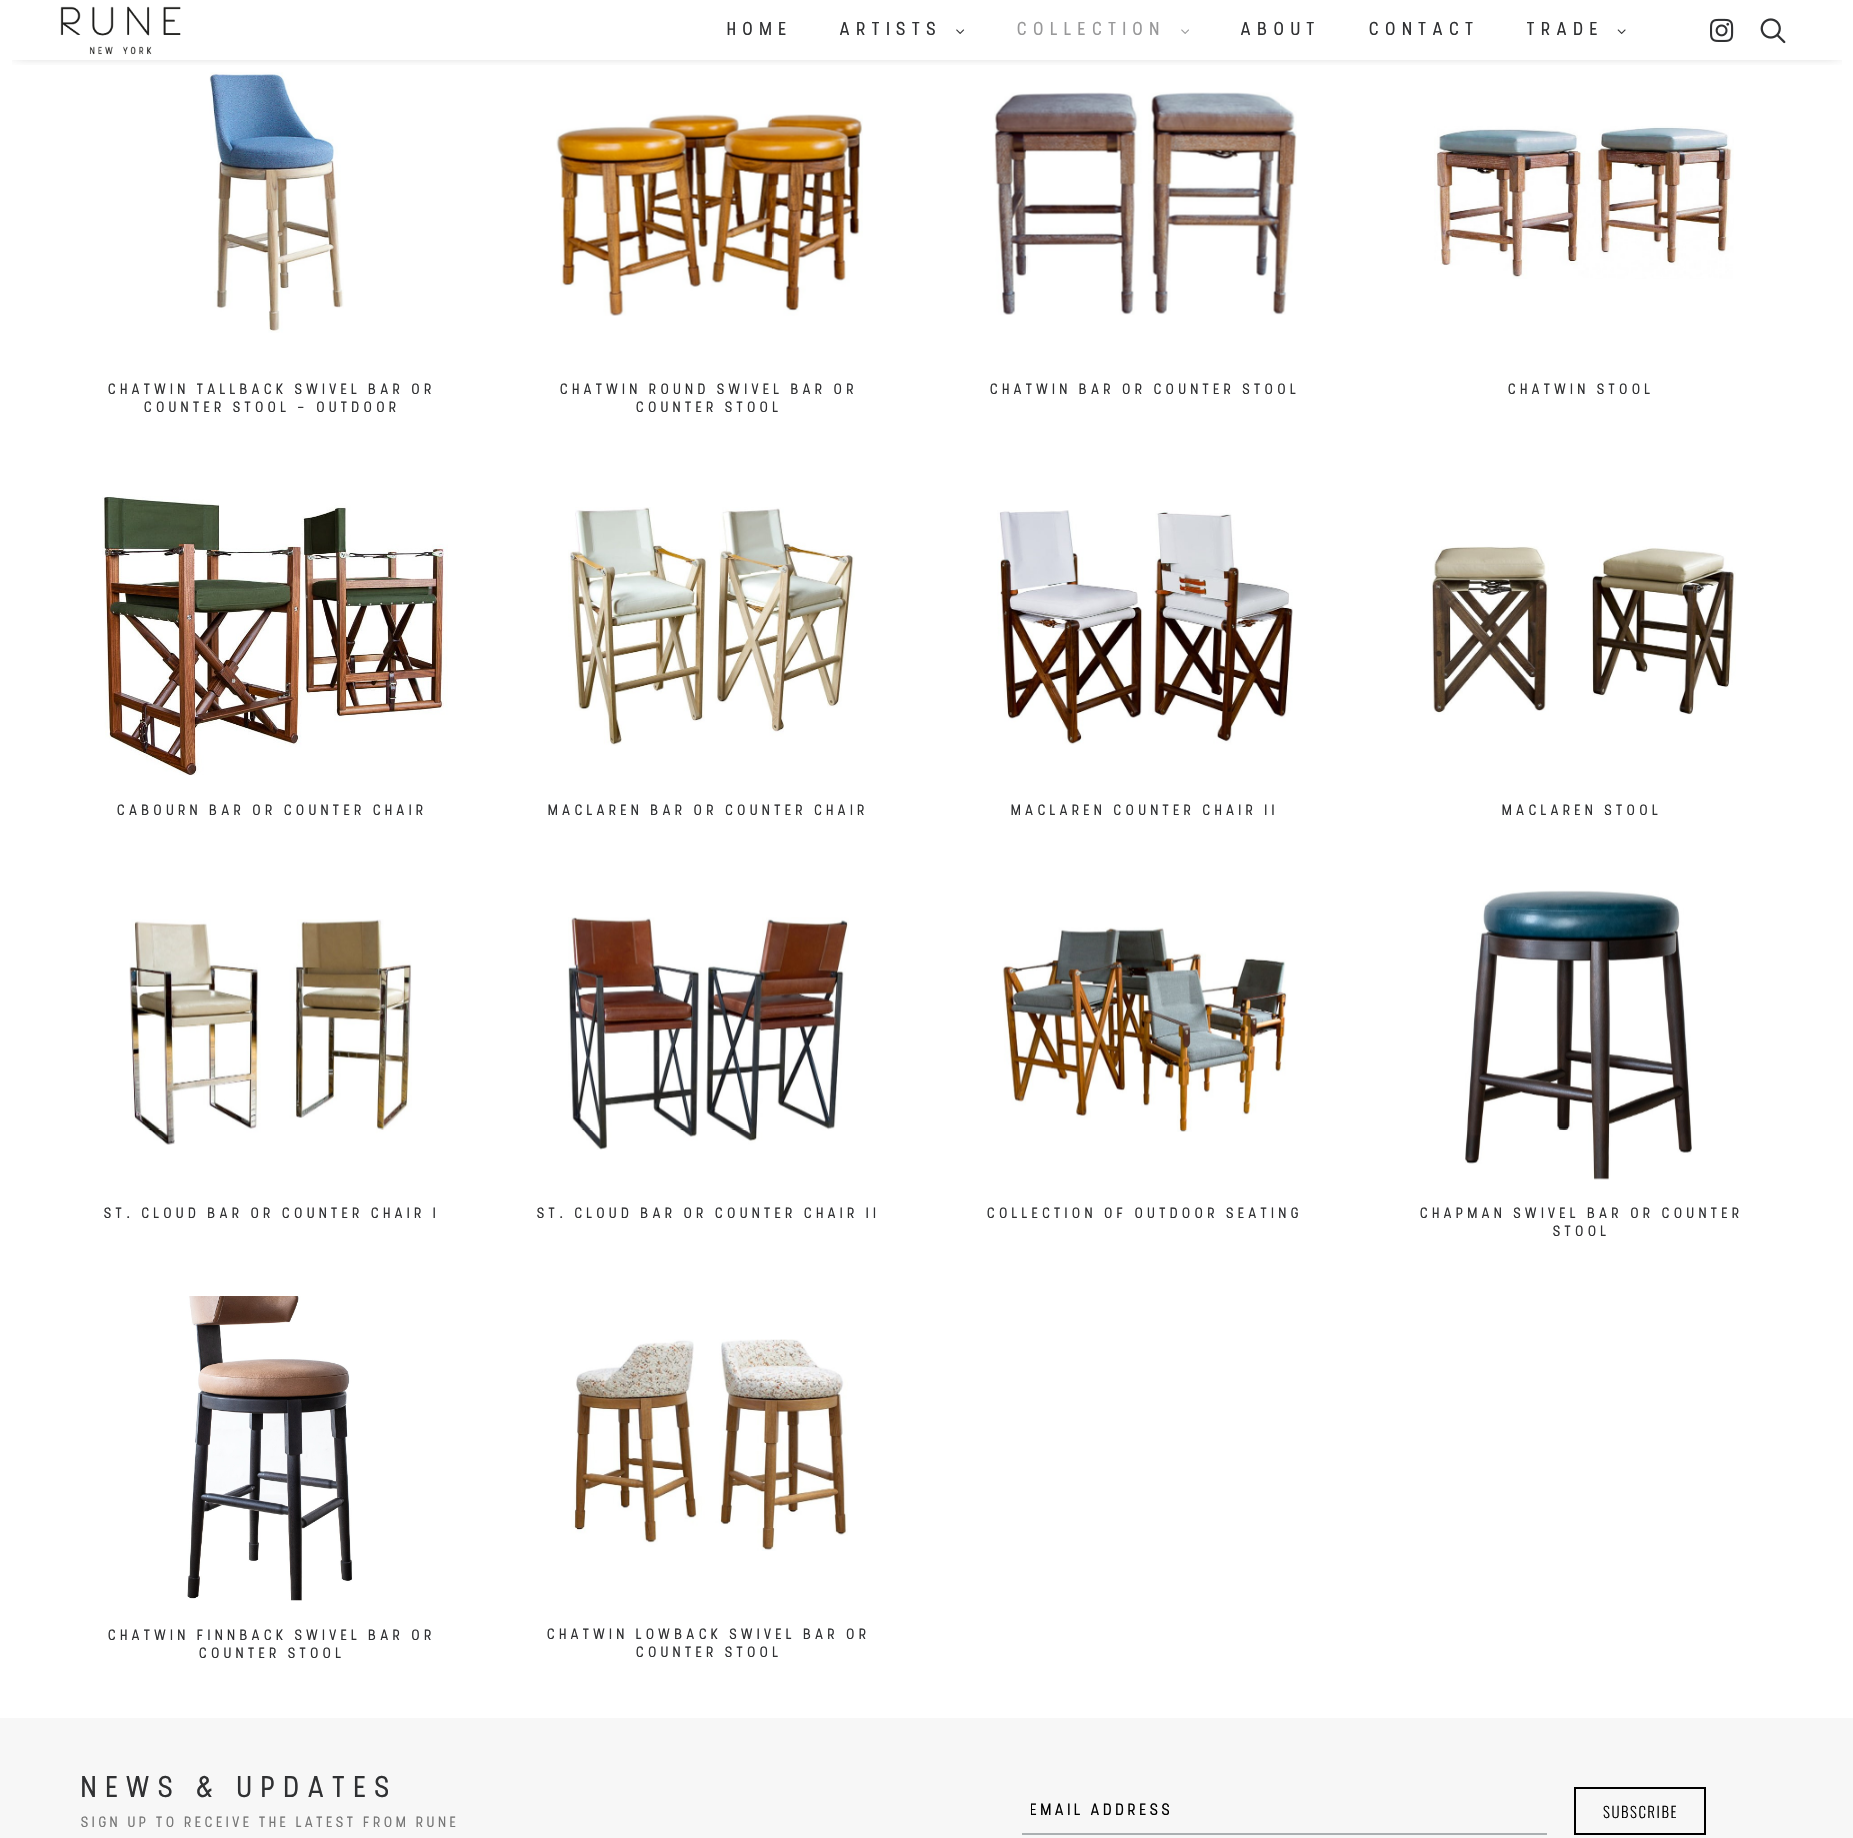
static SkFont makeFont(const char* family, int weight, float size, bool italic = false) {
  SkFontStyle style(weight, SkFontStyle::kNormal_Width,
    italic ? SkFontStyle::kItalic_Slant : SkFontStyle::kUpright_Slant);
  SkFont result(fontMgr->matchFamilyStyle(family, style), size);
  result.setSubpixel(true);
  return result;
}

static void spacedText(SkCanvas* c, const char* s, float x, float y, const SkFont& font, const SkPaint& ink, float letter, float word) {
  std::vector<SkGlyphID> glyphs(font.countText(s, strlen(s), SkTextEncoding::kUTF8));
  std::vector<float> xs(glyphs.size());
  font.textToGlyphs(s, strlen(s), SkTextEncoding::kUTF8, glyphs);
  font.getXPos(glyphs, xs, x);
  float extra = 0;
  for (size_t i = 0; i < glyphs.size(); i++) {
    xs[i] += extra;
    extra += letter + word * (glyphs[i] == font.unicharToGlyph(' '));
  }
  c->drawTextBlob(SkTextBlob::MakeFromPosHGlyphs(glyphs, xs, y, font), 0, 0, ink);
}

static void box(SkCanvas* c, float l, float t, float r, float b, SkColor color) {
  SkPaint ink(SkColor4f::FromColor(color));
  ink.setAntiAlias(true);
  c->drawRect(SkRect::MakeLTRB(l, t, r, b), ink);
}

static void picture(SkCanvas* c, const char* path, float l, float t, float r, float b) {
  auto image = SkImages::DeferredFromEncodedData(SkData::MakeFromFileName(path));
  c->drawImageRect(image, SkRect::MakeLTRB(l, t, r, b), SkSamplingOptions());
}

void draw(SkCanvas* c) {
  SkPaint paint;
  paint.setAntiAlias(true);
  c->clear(0xfff7f7f7);
  box(c, 0, 0, 1853, 1718, 0xffffffff);
  picture(c, "img_07.png", 209, 72, 344, 333);
  c->save();
  c->clipRect(SkRect::MakeLTRB(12, 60, 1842, 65));
  paint.setColor(0x99000000);
  paint.setMaskFilter(SkMaskFilter::MakeBlur(kNormal_SkBlurStyle, 7.5f));
  c->drawRect(SkRect::MakeLTRB(15, 21, 1839, 51), paint);
  paint.setMaskFilter(nullptr);
  c->restore();
  picture(c, "img_01.png", 60, 6, 181, 55);
  SkFont face1 = makeFont("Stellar", 700, 18);
  paint.setColor(0xff303133);
  spacedText(c, "HOME", 727, 35, face1, paint, 6.25f, 0);
  spacedText(c, "ARTISTS", 840, 35, face1, paint, 6.25f, 0);
  picture(c, "img_02.png", 956, 29, 965, 34);
  paint.setColor(0xff989899);
  spacedText(c, "COLLECTION", 1017, 35, face1, paint, 6.25f, 0);
  picture(c, "img_03.png", 1181, 29, 1189, 34);
  paint.setColor(0xff303133);
  spacedText(c, "ABOUT", 1241, 35, face1, paint, 6.25f, 0);
  spacedText(c, "CONTACT", 1369, 35, face1, paint, 6.25f, 0);
  spacedText(c, "TRADE", 1527, 35, face1, paint, 6.25f, 0);
  picture(c, "img_04.png", 1617, 29, 1626, 34);
  picture(c, "img_05.png", 1710, 18, 1734, 42);
  picture(c, "img_06.png", 1760, 18, 1786, 44);
  SkFont face2 = makeFont("Stellar", 400, 15);
  spacedText(c, "CHATWIN TALLBACK SWIVEL BAR OR", 108, 394, face2, paint, 3.75f, 0);
  spacedText(c, "COUNTER STOOL – OUTDOOR", 144, 412, face2, paint, 3.75f, 0);
  picture(c, "img_08.png", 556, 114, 863, 316);
  spacedText(c, "CHATWIN ROUND SWIVEL BAR OR", 560, 394, face2, paint, 3.75f, 0);
  spacedText(c, "COUNTER STOOL", 636, 412, face2, paint, 3.75f, 0);
  picture(c, "img_09.png", 994, 92, 1297, 315);
  spacedText(c, "CHATWIN BAR OR COUNTER STOOL", 990, 394, face2, paint, 3.75f, 0);
  picture(c, "img_10.png", 1434, 126, 1734, 279);
  spacedText(c, "CHATWIN STOOL", 1508, 394, face2, paint, 3.75f, 0);
  picture(c, "img_11.png", 102, 496, 448, 776);
  spacedText(c, "CABOURN BAR OR COUNTER CHAIR", 117, 815, face2, paint, 3.75f, 0);
  picture(c, "img_12.png", 568, 507, 855, 746);
  spacedText(c, "MACLAREN BAR OR COUNTER CHAIR", 548, 815, face2, paint, 3.75f, 0);
  picture(c, "img_13.png", 997, 510, 1293, 745);
  spacedText(c, "MACLAREN COUNTER CHAIR II", 1011, 815, face2, paint, 3.75f, 0);
  picture(c, "img_14.png", 1430, 546, 1736, 715);
  spacedText(c, "MACLAREN STOOL", 1502, 815, face2, paint, 3.75f, 0);
  picture(c, "img_15.png", 129, 919, 412, 1145);
  spacedText(c, "ST. CLOUD BAR OR COUNTER CHAIR I", 104, 1218, face2, paint, 3.75f, 0);
  picture(c, "img_16.png", 568, 917, 849, 1150);
  spacedText(c, "ST. CLOUD BAR OR COUNTER CHAIR II", 537, 1218, face2, paint, 3.75f, 0);
  picture(c, "img_17.png", 1002, 927, 1288, 1132);
  spacedText(c, "COLLECTION OF OUTDOOR SEATING", 987, 1218, face2, paint, 3.75f, 0);
  picture(c, "img_18.png", 1465, 890, 1692, 1180);
  spacedText(c, "CHAPMAN SWIVEL BAR OR COUNTER", 1420, 1218, face2, paint, 3.75f, 0);
  spacedText(c, "STOOL", 1553, 1236, face2, paint, 3.75f, 0);
  picture(c, "img_19.png", 187, 1296, 353, 1601);
  spacedText(c, "CHATWIN FINNBACK SWIVEL BAR OR", 108, 1640, face2, paint, 3.75f, 0);
  spacedText(c, "COUNTER STOOL", 199, 1658, face2, paint, 3.75f, 0);
  picture(c, "img_20.png", 571, 1339, 848, 1551);
  spacedText(c, "CHATWIN LOWBACK SWIVEL BAR OR", 547, 1639, face2, paint, 3.75f, 0);
  spacedText(c, "COUNTER STOOL", 636, 1657, face2, paint, 3.75f, 0);
  SkFont face3 = makeFont("Stellar", 400, 30);
  spacedText(c, "NEWS & UPDATES", 81, 1797, face3, paint, 7.5f, 0);
  paint.setColor(0xff777777);
  spacedText(c, "SIGN UP TO RECEIVE THE LATEST FROM RUNE", 81, 1827, face2, paint, 3, 0);
  box(c, 1022, 1833, 1547, 1835, 0xffabb0b2);
  c->save();
  c->clipRect(SkRect::MakeLTRB(1031, 1803, 1538, 1820));
  SkFont face4 = makeFont("Stellar", 400, 16.5f);
  paint.setColor(0xff000000);
  spacedText(c, "EMAIL ADDRESS", 1030, 1815, face4, paint, 3, 0);
  c->restore();
  paint.setStyle(SkPaint::kStroke_Style);
  paint.setStrokeWidth(2);
  c->drawRect(SkRect::MakeLTRB(1575, 1788, 1705, 1834), paint);
  SkFont face5 = makeFont("Oswald", 300, 15);
  paint.setStyle(SkPaint::kFill_Style);
  spacedText(c, "SUBSCRIBE", 1603, 1818, face5, paint, 1.5f, 0);
}
